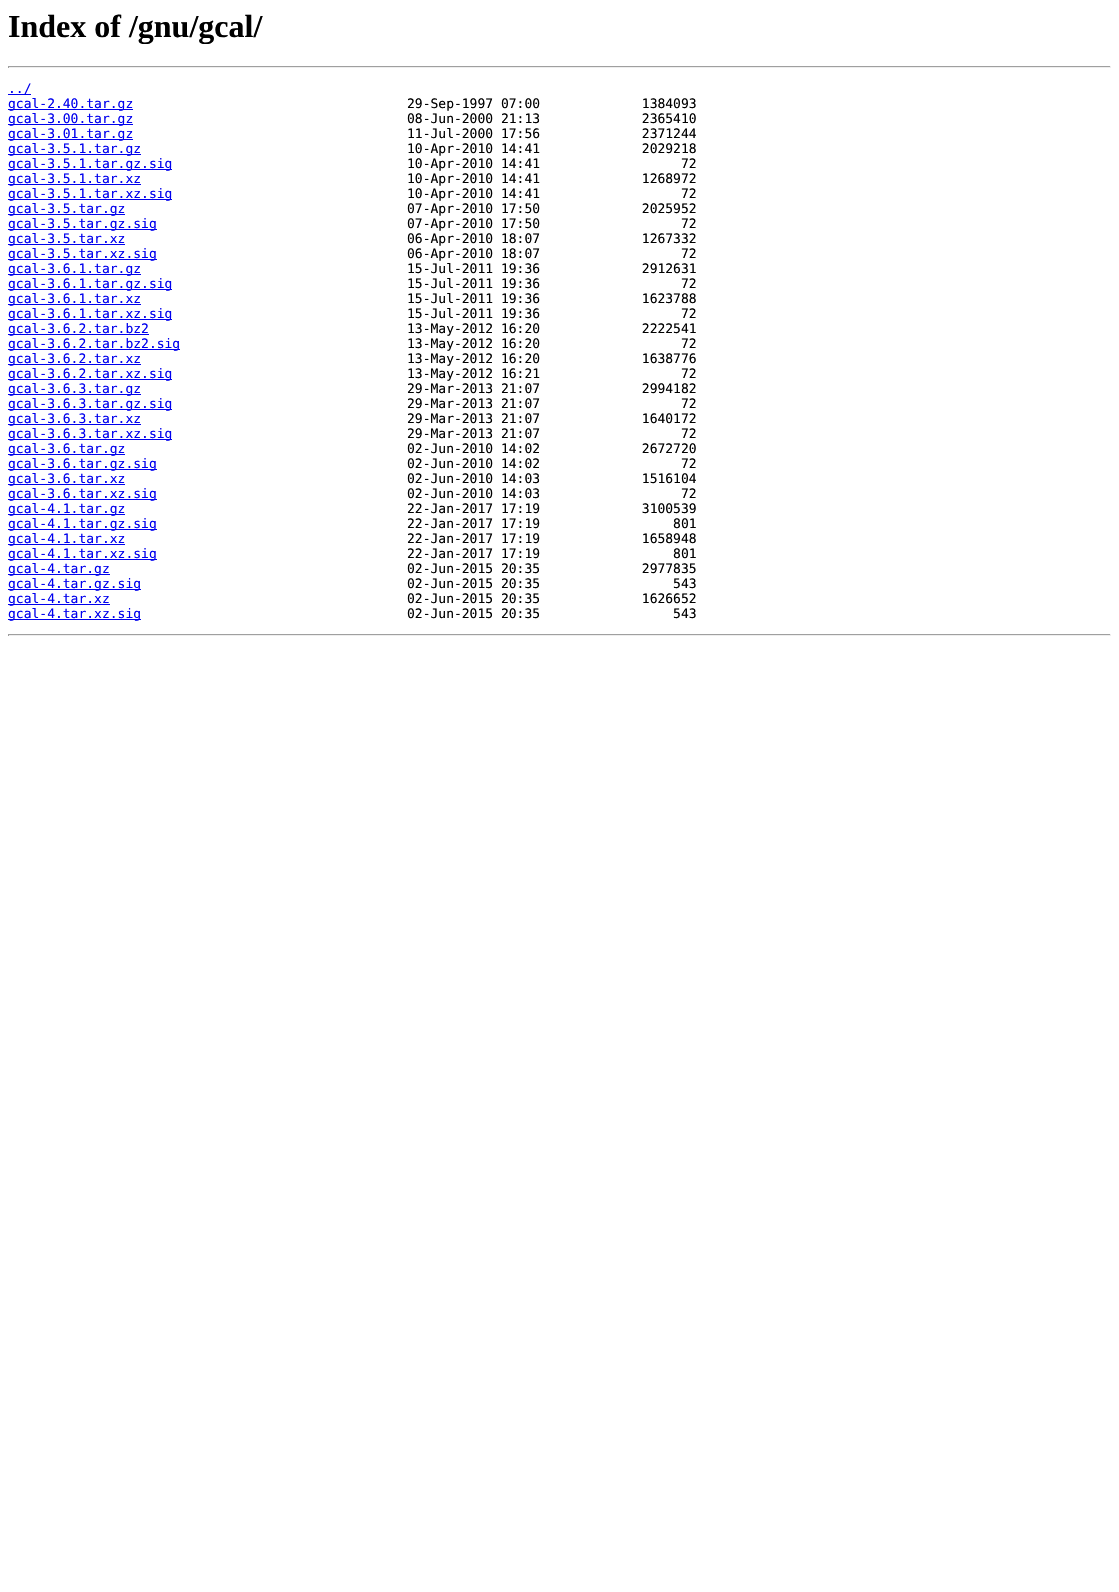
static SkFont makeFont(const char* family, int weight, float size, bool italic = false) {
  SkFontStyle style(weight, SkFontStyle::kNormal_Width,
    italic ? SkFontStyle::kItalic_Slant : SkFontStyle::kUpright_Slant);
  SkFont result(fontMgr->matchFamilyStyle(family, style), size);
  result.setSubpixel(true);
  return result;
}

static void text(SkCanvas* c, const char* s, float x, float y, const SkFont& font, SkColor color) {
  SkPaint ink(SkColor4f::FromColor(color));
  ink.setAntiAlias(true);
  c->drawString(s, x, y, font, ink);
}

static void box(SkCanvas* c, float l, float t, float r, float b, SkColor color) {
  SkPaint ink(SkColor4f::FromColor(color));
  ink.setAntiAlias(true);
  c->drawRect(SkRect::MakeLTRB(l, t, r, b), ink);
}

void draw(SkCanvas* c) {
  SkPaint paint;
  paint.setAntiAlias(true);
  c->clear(0xffffffff);
  SkFont face1 = makeFont("Liberation Serif", 700, 32);
  text(c, "Index of /gnu/gcal/", 8, 37, face1, 0xff000000);
  box(c, 8, 66, 1111, 67, 0xff9f9f9f);
  box(c, 1110, 66, 1111, 68, 0xffeeeeee);
  box(c, 8, 67, 1111, 68, 0xffeeeeee);
  box(c, 8, 66, 9, 68, 0xff9f9f9f);
  box(c, 8, 94, 31, 95, 0xff0000ee);
  SkFont face2 = makeFont("DejaVu Sans Mono", 400, 13);
  text(c, "../", 8, 93, face2, 0xff0000ee);
  box(c, 8, 109, 133, 110, 0xff0000ee);
  text(c, "gcal-2.40.tar.gz", 8, 108, face2, 0xff0000ee);
  text(c, "29-Sep-1997 07:00             1384093", 407, 108, face2, 0xff000000);
  box(c, 8, 124, 133, 125, 0xff0000ee);
  text(c, "gcal-3.00.tar.gz", 8, 123, face2, 0xff0000ee);
  text(c, "08-Jun-2000 21:13             2365410", 407, 123, face2, 0xff000000);
  box(c, 8, 139, 133, 140, 0xff0000ee);
  text(c, "gcal-3.01.tar.gz", 8, 138, face2, 0xff0000ee);
  text(c, "11-Jul-2000 17:56             2371244", 407, 138, face2, 0xff000000);
  box(c, 8, 154, 141, 155, 0xff0000ee);
  text(c, "gcal-3.5.1.tar.gz", 8, 153, face2, 0xff0000ee);
  text(c, "10-Apr-2010 14:41             2029218", 407, 153, face2, 0xff000000);
  box(c, 8, 169, 172, 170, 0xff0000ee);
  text(c, "gcal-3.5.1.tar.gz.sig", 8, 168, face2, 0xff0000ee);
  text(c, "10-Apr-2010 14:41                  72", 407, 168, face2, 0xff000000);
  box(c, 8, 184, 141, 185, 0xff0000ee);
  text(c, "gcal-3.5.1.tar.xz", 8, 183, face2, 0xff0000ee);
  text(c, "10-Apr-2010 14:41             1268972", 407, 183, face2, 0xff000000);
  box(c, 8, 199, 172, 200, 0xff0000ee);
  text(c, "gcal-3.5.1.tar.xz.sig", 8, 198, face2, 0xff0000ee);
  text(c, "10-Apr-2010 14:41                  72", 407, 198, face2, 0xff000000);
  box(c, 8, 214, 125, 215, 0xff0000ee);
  text(c, "gcal-3.5.tar.gz", 8, 213, face2, 0xff0000ee);
  text(c, "07-Apr-2010 17:50             2025952", 407, 213, face2, 0xff000000);
  box(c, 8, 229, 157, 230, 0xff0000ee);
  text(c, "gcal-3.5.tar.gz.sig", 8, 228, face2, 0xff0000ee);
  text(c, "07-Apr-2010 17:50                  72", 407, 228, face2, 0xff000000);
  box(c, 8, 244, 125, 245, 0xff0000ee);
  text(c, "gcal-3.5.tar.xz", 8, 243, face2, 0xff0000ee);
  text(c, "06-Apr-2010 18:07             1267332", 407, 243, face2, 0xff000000);
  box(c, 8, 259, 157, 260, 0xff0000ee);
  text(c, "gcal-3.5.tar.xz.sig", 8, 258, face2, 0xff0000ee);
  text(c, "06-Apr-2010 18:07                  72", 407, 258, face2, 0xff000000);
  box(c, 8, 274, 141, 275, 0xff0000ee);
  text(c, "gcal-3.6.1.tar.gz", 8, 273, face2, 0xff0000ee);
  text(c, "15-Jul-2011 19:36             2912631", 407, 273, face2, 0xff000000);
  box(c, 8, 289, 172, 290, 0xff0000ee);
  text(c, "gcal-3.6.1.tar.gz.sig", 8, 288, face2, 0xff0000ee);
  text(c, "15-Jul-2011 19:36                  72", 407, 288, face2, 0xff000000);
  box(c, 8, 304, 141, 305, 0xff0000ee);
  text(c, "gcal-3.6.1.tar.xz", 8, 303, face2, 0xff0000ee);
  text(c, "15-Jul-2011 19:36             1623788", 407, 303, face2, 0xff000000);
  box(c, 8, 319, 172, 320, 0xff0000ee);
  text(c, "gcal-3.6.1.tar.xz.sig", 8, 318, face2, 0xff0000ee);
  text(c, "15-Jul-2011 19:36                  72", 407, 318, face2, 0xff000000);
  box(c, 8, 334, 149, 335, 0xff0000ee);
  text(c, "gcal-3.6.2.tar.bz2", 8, 333, face2, 0xff0000ee);
  text(c, "13-May-2012 16:20             2222541", 407, 333, face2, 0xff000000);
  box(c, 8, 349, 180, 350, 0xff0000ee);
  text(c, "gcal-3.6.2.tar.bz2.sig", 8, 348, face2, 0xff0000ee);
  text(c, "13-May-2012 16:20                  72", 407, 348, face2, 0xff000000);
  box(c, 8, 364, 141, 365, 0xff0000ee);
  text(c, "gcal-3.6.2.tar.xz", 8, 363, face2, 0xff0000ee);
  text(c, "13-May-2012 16:20             1638776", 407, 363, face2, 0xff000000);
  box(c, 8, 379, 172, 380, 0xff0000ee);
  text(c, "gcal-3.6.2.tar.xz.sig", 8, 378, face2, 0xff0000ee);
  text(c, "13-May-2012 16:21                  72", 407, 378, face2, 0xff000000);
  box(c, 8, 394, 141, 395, 0xff0000ee);
  text(c, "gcal-3.6.3.tar.gz", 8, 393, face2, 0xff0000ee);
  text(c, "29-Mar-2013 21:07             2994182", 407, 393, face2, 0xff000000);
  box(c, 8, 409, 172, 410, 0xff0000ee);
  text(c, "gcal-3.6.3.tar.gz.sig", 8, 408, face2, 0xff0000ee);
  text(c, "29-Mar-2013 21:07                  72", 407, 408, face2, 0xff000000);
  box(c, 8, 424, 141, 425, 0xff0000ee);
  text(c, "gcal-3.6.3.tar.xz", 8, 423, face2, 0xff0000ee);
  text(c, "29-Mar-2013 21:07             1640172", 407, 423, face2, 0xff000000);
  box(c, 8, 439, 172, 440, 0xff0000ee);
  text(c, "gcal-3.6.3.tar.xz.sig", 8, 438, face2, 0xff0000ee);
  text(c, "29-Mar-2013 21:07                  72", 407, 438, face2, 0xff000000);
  box(c, 8, 454, 125, 455, 0xff0000ee);
  text(c, "gcal-3.6.tar.gz", 8, 453, face2, 0xff0000ee);
  text(c, "02-Jun-2010 14:02             2672720", 407, 453, face2, 0xff000000);
  box(c, 8, 469, 157, 470, 0xff0000ee);
  text(c, "gcal-3.6.tar.gz.sig", 8, 468, face2, 0xff0000ee);
  text(c, "02-Jun-2010 14:02                  72", 407, 468, face2, 0xff000000);
  box(c, 8, 484, 125, 485, 0xff0000ee);
  text(c, "gcal-3.6.tar.xz", 8, 483, face2, 0xff0000ee);
  text(c, "02-Jun-2010 14:03             1516104", 407, 483, face2, 0xff000000);
  box(c, 8, 499, 157, 500, 0xff0000ee);
  text(c, "gcal-3.6.tar.xz.sig", 8, 498, face2, 0xff0000ee);
  text(c, "02-Jun-2010 14:03                  72", 407, 498, face2, 0xff000000);
  box(c, 8, 514, 125, 515, 0xff0000ee);
  text(c, "gcal-4.1.tar.gz", 8, 513, face2, 0xff0000ee);
  text(c, "22-Jan-2017 17:19             3100539", 407, 513, face2, 0xff000000);
  box(c, 8, 529, 157, 530, 0xff0000ee);
  text(c, "gcal-4.1.tar.gz.sig", 8, 528, face2, 0xff0000ee);
  text(c, "22-Jan-2017 17:19                 801", 407, 528, face2, 0xff000000);
  box(c, 8, 544, 125, 545, 0xff0000ee);
  text(c, "gcal-4.1.tar.xz", 8, 543, face2, 0xff0000ee);
  text(c, "22-Jan-2017 17:19             1658948", 407, 543, face2, 0xff000000);
  box(c, 8, 559, 157, 560, 0xff0000ee);
  text(c, "gcal-4.1.tar.xz.sig", 8, 558, face2, 0xff0000ee);
  text(c, "22-Jan-2017 17:19                 801", 407, 558, face2, 0xff000000);
  box(c, 8, 574, 110, 575, 0xff0000ee);
  text(c, "gcal-4.tar.gz", 8, 573, face2, 0xff0000ee);
  text(c, "02-Jun-2015 20:35             2977835", 407, 573, face2, 0xff000000);
  box(c, 8, 589, 141, 590, 0xff0000ee);
  text(c, "gcal-4.tar.gz.sig", 8, 588, face2, 0xff0000ee);
  text(c, "02-Jun-2015 20:35                 543", 407, 588, face2, 0xff000000);
  box(c, 8, 604, 110, 605, 0xff0000ee);
  text(c, "gcal-4.tar.xz", 8, 603, face2, 0xff0000ee);
  text(c, "02-Jun-2015 20:35             1626652", 407, 603, face2, 0xff000000);
  box(c, 8, 619, 141, 620, 0xff0000ee);
  text(c, "gcal-4.tar.xz.sig", 8, 618, face2, 0xff0000ee);
  text(c, "02-Jun-2015 20:35                 543", 407, 618, face2, 0xff000000);
  box(c, 8, 634, 1111, 635, 0xff9f9f9f);
  box(c, 1110, 634, 1111, 636, 0xffeeeeee);
  box(c, 8, 635, 1111, 636, 0xffeeeeee);
  box(c, 8, 634, 9, 636, 0xff9f9f9f);
}
